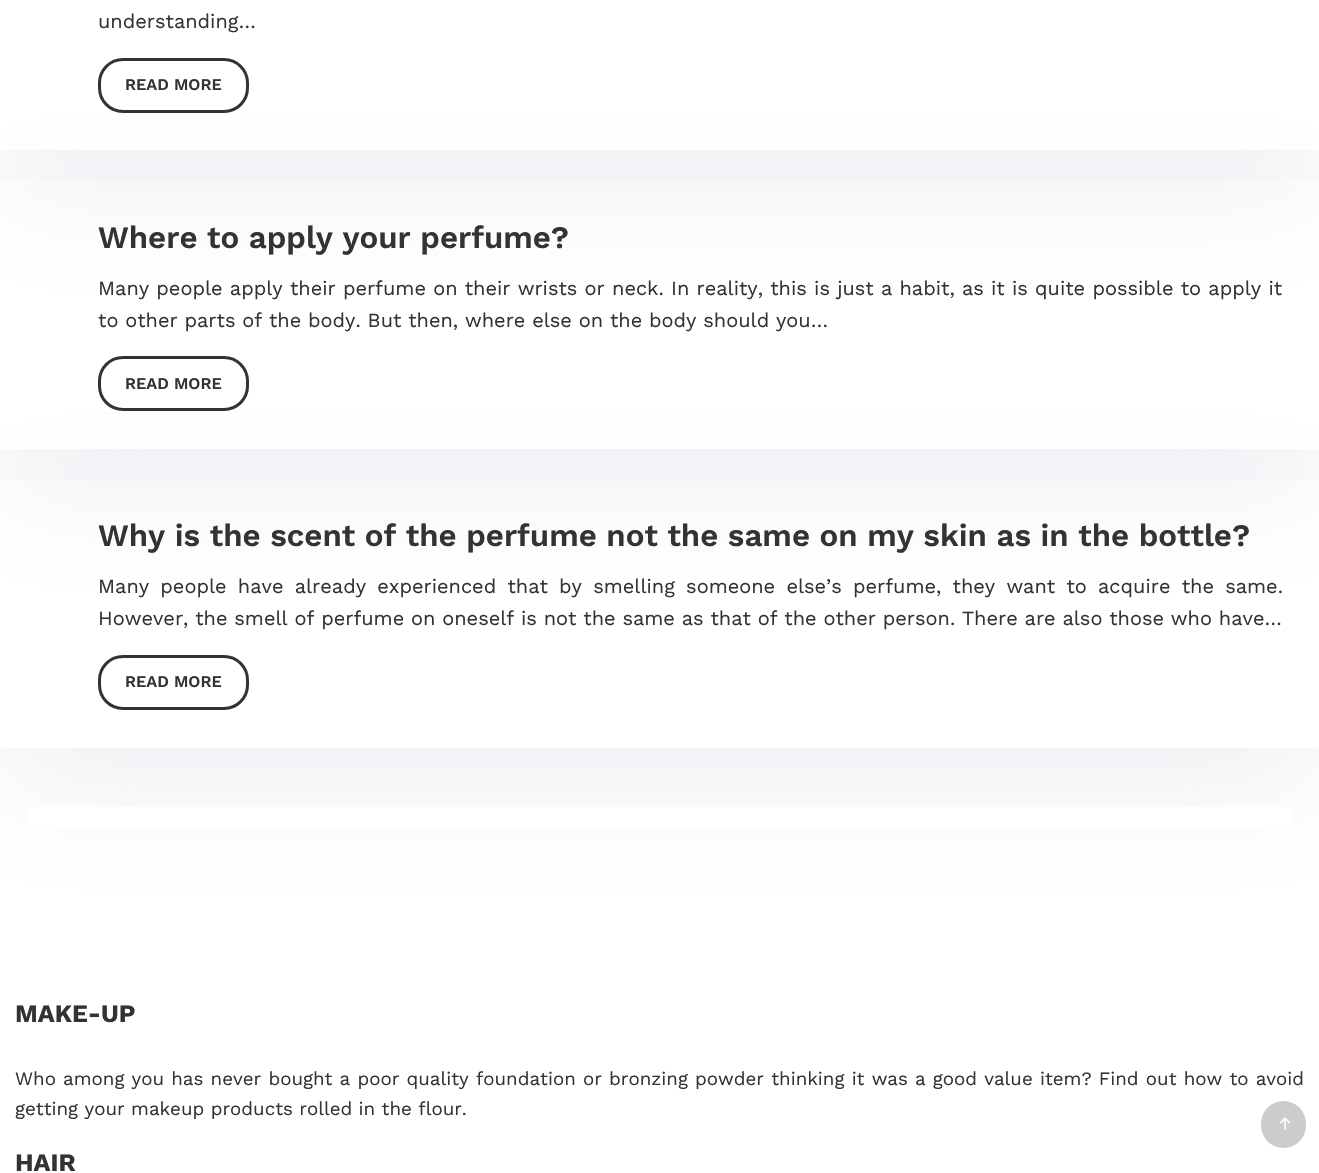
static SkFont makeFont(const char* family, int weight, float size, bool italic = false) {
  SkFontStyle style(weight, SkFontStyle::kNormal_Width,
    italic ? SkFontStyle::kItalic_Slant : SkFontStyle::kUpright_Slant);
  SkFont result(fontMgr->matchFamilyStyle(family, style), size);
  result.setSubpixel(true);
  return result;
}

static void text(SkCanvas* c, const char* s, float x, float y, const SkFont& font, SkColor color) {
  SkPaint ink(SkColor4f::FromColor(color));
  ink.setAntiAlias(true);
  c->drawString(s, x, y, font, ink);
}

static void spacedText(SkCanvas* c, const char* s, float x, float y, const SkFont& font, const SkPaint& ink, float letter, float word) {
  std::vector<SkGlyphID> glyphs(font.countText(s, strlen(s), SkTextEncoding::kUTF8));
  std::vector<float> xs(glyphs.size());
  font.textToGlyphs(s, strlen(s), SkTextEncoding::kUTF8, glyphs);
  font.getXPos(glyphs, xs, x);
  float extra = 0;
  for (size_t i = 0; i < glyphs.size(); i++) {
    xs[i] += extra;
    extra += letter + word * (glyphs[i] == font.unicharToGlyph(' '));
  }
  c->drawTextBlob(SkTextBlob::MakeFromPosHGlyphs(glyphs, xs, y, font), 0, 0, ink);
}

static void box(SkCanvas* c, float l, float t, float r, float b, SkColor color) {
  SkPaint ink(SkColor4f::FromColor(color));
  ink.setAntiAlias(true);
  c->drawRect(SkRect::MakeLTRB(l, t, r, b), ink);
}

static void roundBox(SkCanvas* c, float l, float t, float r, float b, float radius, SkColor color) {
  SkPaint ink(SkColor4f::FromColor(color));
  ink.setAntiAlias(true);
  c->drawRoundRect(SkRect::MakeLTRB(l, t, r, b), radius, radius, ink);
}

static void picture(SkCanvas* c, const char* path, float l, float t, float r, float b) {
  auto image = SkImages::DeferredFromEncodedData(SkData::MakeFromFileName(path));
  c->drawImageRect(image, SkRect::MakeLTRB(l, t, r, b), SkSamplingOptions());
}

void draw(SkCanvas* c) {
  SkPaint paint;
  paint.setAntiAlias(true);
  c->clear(0xffffffff);
  c->save();
  c->clipRect(SkRect::MakeLTRB(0, 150, 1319, 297));
  paint.setColor(0x80dde0e7);
  paint.setMaskFilter(SkMaskFilter::MakeBlur(kNormal_SkBlurStyle, 62.5f));
  c->drawRect(SkRect::MakeLTRB(0, -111, 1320, 188), paint);
  paint.setMaskFilter(nullptr);
  c->restore();
  c->save();
  c->clipPath(SkPathBuilder(SkPathFillType::kEvenOdd).moveTo(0, 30).lineTo(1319, 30).lineTo(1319, 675).lineTo(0, 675).close().moveTo(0, 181).lineTo(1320, 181).lineTo(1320, 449).lineTo(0, 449).close().detach(), true);
  paint.setMaskFilter(SkMaskFilter::MakeBlur(kNormal_SkBlurStyle, 62.5f));
  c->drawRect(SkRect::MakeLTRB(0, 219, 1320, 486), paint);
  paint.setMaskFilter(nullptr);
  c->restore();
  SkFont face1 = makeFont("Work Sans", 400, 20);
  text(c, "understanding…", 98, 28, face1, 0xff333333);
  paint.setStyle(SkPaint::kStroke_Style);
  paint.setStrokeWidth(3);
  paint.setColor(0xff333333);
  c->drawRoundRect(SkRect::MakeLTRB(99.5f, 59.5f, 247.5f, 111.5f), 23.5f, 23.5f, paint);
  SkFont face2 = makeFont("Work Sans", 600, 16.25f);
  text(c, "READ MORE", 125, 90, face2, 0xff333333);
  SkFont face3 = makeFont("Work Sans", 600, 31.25f);
  text(c, "Where to apply your perfume?", 98, 248, face3, 0xff333333);
  paint.setStyle(SkPaint::kFill_Style);
  spacedText(c, "Many people apply their perfume on their wrists or neck. In reality, this is just a habit, as it is quite possible to apply it", 98, 295, face1, paint, 0, 0.4f);
  c->save();
  c->clipPath(SkPathBuilder(SkPathFillType::kEvenOdd).moveTo(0, 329).lineTo(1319, 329).lineTo(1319, 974).lineTo(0, 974).close().moveTo(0, 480).lineTo(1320, 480).lineTo(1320, 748).lineTo(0, 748).close().detach(), true);
  paint.setColor(0x80dde0e7);
  paint.setMaskFilter(SkMaskFilter::MakeBlur(kNormal_SkBlurStyle, 62.5f));
  c->drawRect(SkRect::MakeLTRB(0, 518, 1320, 785), paint);
  paint.setMaskFilter(nullptr);
  c->restore();
  text(c, "to other parts of the body. But then, where else on the body should you…", 98, 327, face1, 0xff333333);
  paint.setStyle(SkPaint::kStroke_Style);
  paint.setColor(0xff333333);
  c->drawRoundRect(SkRect::MakeLTRB(99.5f, 357.5f, 247.5f, 409.5f), 23.5f, 23.5f, paint);
  text(c, "READ MORE", 125, 389, face2, 0xff333333);
  text(c, "Why is the scent of the perfume not the same on my skin as in the bottle?", 98, 546, face3, 0xff333333);
  paint.setStyle(SkPaint::kFill_Style);
  spacedText(c, "Many people have already experienced that by smelling someone else’s perfume, they want to acquire the same.", 98, 593, face1, paint, 0, 4.4f);
  text(c, "However, the smell of perfume on oneself is not the same as that of the other person. There are also those who have…", 98, 625, face1, 0xff333333);
  paint.setStyle(SkPaint::kStroke_Style);
  c->drawRoundRect(SkRect::MakeLTRB(99.5f, 656.5f, 247.5f, 708.5f), 23.5f, 23.5f, paint);
  text(c, "READ MORE", 125, 687, face2, 0xff333333);
  box(c, 27, 807, 1293, 830, 0xffffffff);
  SkFont face4 = makeFont("Work Sans", 700, 25);
  text(c, "MAKE-UP", 15, 1022, face4, 0xff333333);
  SkFont face5 = makeFont("Work Sans", 400, 18.75f);
  paint.setStyle(SkPaint::kFill_Style);
  spacedText(c, "Who among you has never bought a poor quality foundation or bronzing powder thinking it was a good value item? Find out how to avoid", 15, 1085, face5, paint, 0, 0.8f);
  text(c, "getting your makeup products rolled in the flour.", 15, 1115, face5, 0xff333333);
  text(c, "HAIR", 15, 1171, face4, 0xff333333);
  roundBox(c, 1261, 1101, 1306, 1148, 22.5f, 0xffcccccc);
  picture(c, "img_01.png", 1279, 1117, 1291, 1130);
}
